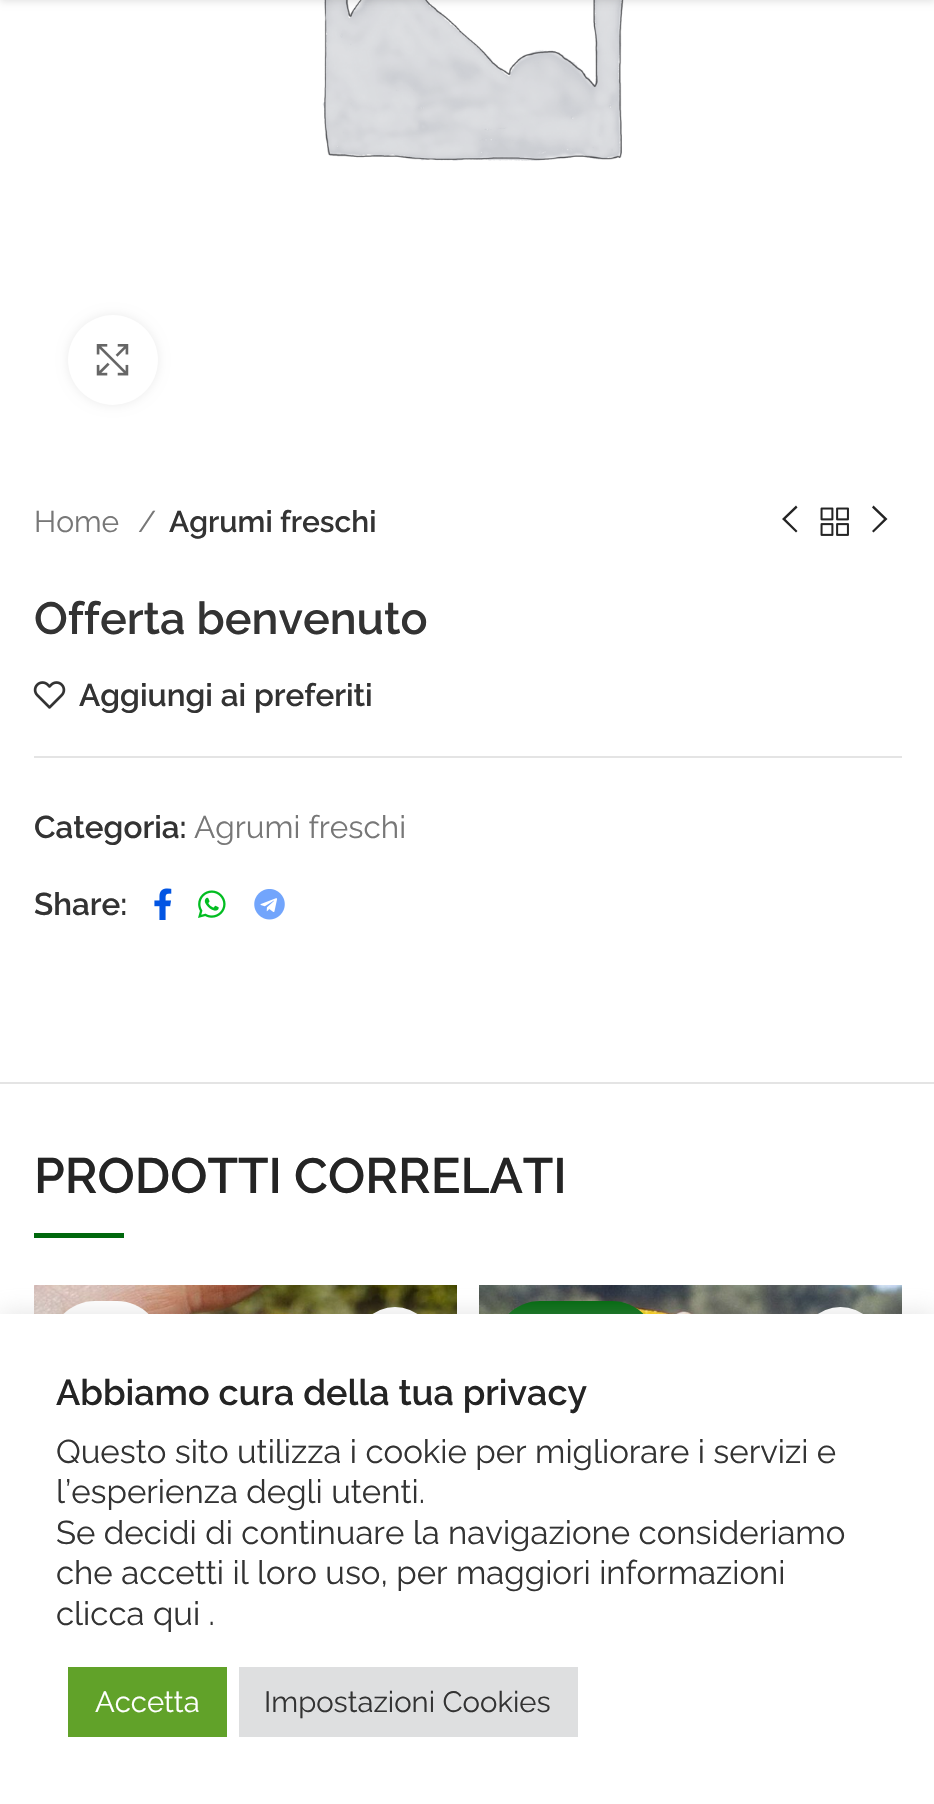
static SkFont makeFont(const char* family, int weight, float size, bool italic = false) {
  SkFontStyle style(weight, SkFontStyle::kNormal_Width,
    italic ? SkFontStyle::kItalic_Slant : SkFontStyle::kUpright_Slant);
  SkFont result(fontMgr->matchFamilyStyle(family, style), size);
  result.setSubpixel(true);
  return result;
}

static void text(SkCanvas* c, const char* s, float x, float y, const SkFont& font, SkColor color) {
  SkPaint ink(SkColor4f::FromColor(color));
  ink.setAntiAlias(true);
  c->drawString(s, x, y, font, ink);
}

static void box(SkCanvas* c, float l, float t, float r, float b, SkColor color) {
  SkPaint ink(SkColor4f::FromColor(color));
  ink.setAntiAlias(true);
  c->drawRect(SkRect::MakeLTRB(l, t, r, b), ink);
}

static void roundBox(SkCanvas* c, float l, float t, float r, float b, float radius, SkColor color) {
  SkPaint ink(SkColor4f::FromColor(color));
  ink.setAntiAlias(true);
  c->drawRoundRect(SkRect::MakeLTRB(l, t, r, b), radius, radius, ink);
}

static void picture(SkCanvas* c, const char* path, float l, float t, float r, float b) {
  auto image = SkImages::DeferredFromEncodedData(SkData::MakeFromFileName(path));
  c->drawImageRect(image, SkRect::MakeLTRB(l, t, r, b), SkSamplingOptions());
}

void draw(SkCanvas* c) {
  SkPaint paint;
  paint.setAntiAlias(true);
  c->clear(0xffffffff);
  picture(c, "img_01.png", 322, 0, 624, 161);
  paint.setColor(0x1a000000);
  paint.setMaskFilter(SkMaskFilter::MakeBlur(kNormal_SkBlurStyle, 3.5f));
  c->drawRect(SkRect::MakeLTRB(0, -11, 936, 2), paint);
  paint.setMaskFilter(nullptr);
  paint.setColor(0x14000000);
  paint.setMaskFilter(SkMaskFilter::MakeBlur(kNormal_SkBlurStyle, 5.5f));
  c->drawRoundRect(SkRect::MakeLTRB(68, 315, 158, 405), 45, 45, paint);
  paint.setMaskFilter(nullptr);
  paint.setColor(0xffffffff);
  c->drawCircle(113, 360, 45, paint);
  picture(c, "img_02.png", 96, 344, 129, 376);
  SkFont face1 = makeFont("Raleway", 400, 30);
  text(c, "Home", 34, 532, face1, 0xff777777);
  text(c, "/", 138, 532, face1, 0xff777777);
  SkFont face2 = makeFont("Raleway", 600, 30);
  text(c, "Agrumi freschi", 169, 532, face2, 0xff333333);
  paint.setColor(0xff242424);
  c->drawPath(SkPathBuilder().moveTo(797.5f, 507.5f).lineTo(785.5f, 519).lineTo(797.5f, 531).lineTo(796, 532.5f).lineTo(782, 519).lineTo(796, 505.5f).close().detach(), paint);
  picture(c, "img_03.png", 820, 507, 849, 536);
  c->drawPath(SkPathBuilder().moveTo(873.5f, 505.5f).lineTo(887.5f, 519).lineTo(873.5f, 532.5f).lineTo(872, 531).lineTo(884, 519).lineTo(872, 507.5f).close().detach(), paint);
  SkFont face3 = makeFont("Raleway", 600, 45);
  text(c, "Offerta benvenuto", 34, 634, face3, 0xff333333);
  picture(c, "img_04.png", 33, 681, 66, 709);
  SkFont face4 = makeFont("Raleway", 600, 31.5f);
  text(c, "Aggiungi ai preferiti", 79, 706, face4, 0xff333333);
  box(c, 34, 756, 902, 758, 0xffe4e4e4);
  text(c, "Categoria:", 34, 838, face4, 0xff333333);
  SkFont face5 = makeFont("Raleway", 400, 31.5f);
  text(c, "Agrumi freschi", 194, 838, face5, 0xff777777);
  text(c, "Share:", 34, 915, face4, 0xff333333);
  picture(c, "img_05.png", 154, 888, 172, 920);
  picture(c, "img_06.png", 198, 890, 226, 918);
  picture(c, "img_07.png", 254, 889, 285, 920);
  box(c, 0, 1082, 934, 1084, 0xffe4e4e4);
  SkFont face6 = makeFont("Raleway", 600, 49.5f);
  text(c, "PRODOTTI CORRELATI", 34, 1193, face6, 0xff242424);
  box(c, 34, 1233, 124, 1238, 0xff00680d);
  picture(c, "img_08.png", 34, 1285, 457, 1314);
  roundBox(c, 50, 1301, 162, 1391, 45, 0xffffffff);
  roundBox(c, 356, 1307, 434, 1465, 39, 0xffffffff);
  picture(c, "img_09.png", 479, 1285, 902, 1314);
  roundBox(c, 495, 1301, 657, 1391, 45, 0xff00680d);
  roundBox(c, 801, 1307, 880, 1465, 39.5f, 0xffffffff);
  paint.setColor(0x4dacabab);
  paint.setMaskFilter(SkMaskFilter::MakeBlur(kNormal_SkBlurStyle, 11));
  c->drawRect(SkRect::MakeLTRB(0, 1312, 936, 1802), paint);
  paint.setMaskFilter(nullptr);
  box(c, 0, 1314, 934, 1804, 0xffffffff);
  SkFont face7 = makeFont("Raleway", 600, 36);
  text(c, "Abbiamo cura della tua privacy", 56, 1405, face7, 0xff242424);
  SkFont face8 = makeFont("Raleway", 400, 33);
  text(c, "Questo sito utilizza i cookie per migliorare i servizi e", 56, 1463, face8, 0xff333333);
  text(c, "l’esperienza degli utenti.", 56, 1503, face8, 0xff333333);
  text(c, "Se decidi di continuare la navigazione consideriamo", 56, 1544, face8, 0xff333333);
  text(c, "che accetti il loro uso, per maggiori informazioni", 56, 1584, face8, 0xff333333);
  text(c, "clicca qui .", 56, 1625, face8, 0xff333333);
  box(c, 68, 1667, 227, 1737, 0xff61a229);
  SkFont face9 = makeFont("Raleway", 400, 29.25f);
  text(c, "Accetta", 95, 1712, face9, 0xffffffff);
  box(c, 239, 1667, 578, 1737, 0xffdedfe0);
  text(c, "Impostazioni Cookies", 264, 1712, face9, 0xff333333);
}
